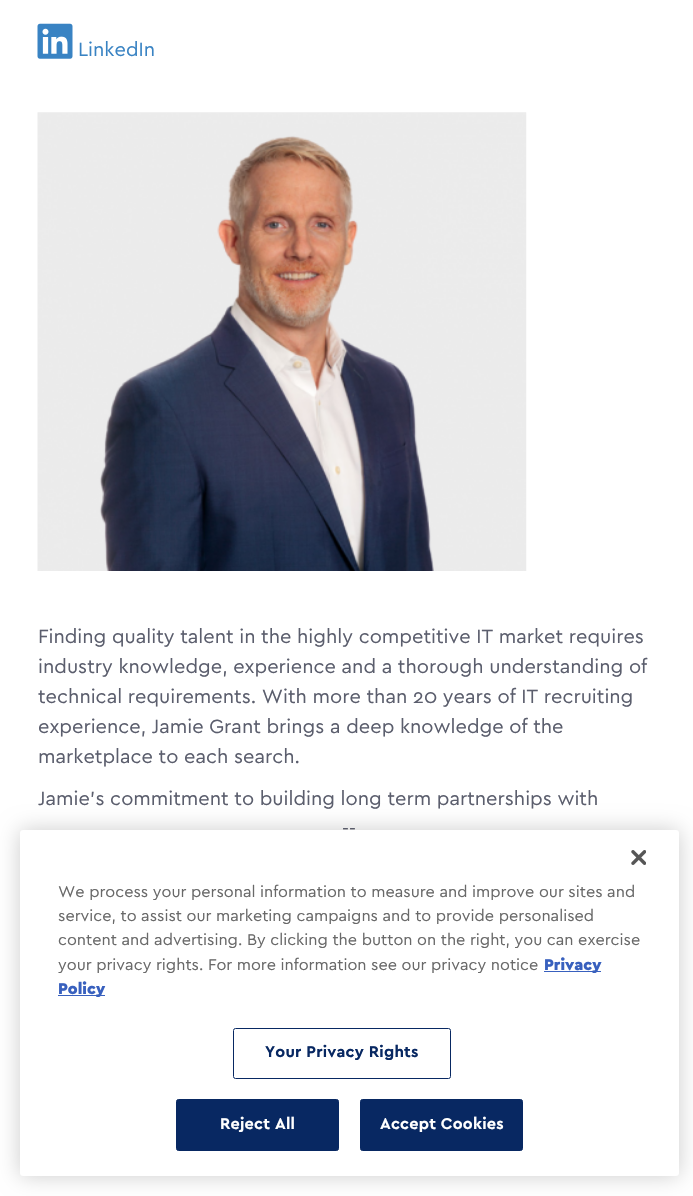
static SkFont makeFont(const char* family, int weight, float size, bool italic = false) {
  SkFontStyle style(weight, SkFontStyle::kNormal_Width,
    italic ? SkFontStyle::kItalic_Slant : SkFontStyle::kUpright_Slant);
  SkFont result(fontMgr->matchFamilyStyle(family, style), size);
  result.setSubpixel(true);
  return result;
}

static void text(SkCanvas* c, const char* s, float x, float y, const SkFont& font, SkColor color) {
  SkPaint ink(SkColor4f::FromColor(color));
  ink.setAntiAlias(true);
  c->drawString(s, x, y, font, ink);
}

static void spacedText(SkCanvas* c, const char* s, float x, float y, const SkFont& font, const SkPaint& ink, float letter, float word) {
  std::vector<SkGlyphID> glyphs(font.countText(s, strlen(s), SkTextEncoding::kUTF8));
  std::vector<float> xs(glyphs.size());
  font.textToGlyphs(s, strlen(s), SkTextEncoding::kUTF8, glyphs);
  font.getXPos(glyphs, xs, x);
  float extra = 0;
  for (size_t i = 0; i < glyphs.size(); i++) {
    xs[i] += extra;
    extra += letter + word * (glyphs[i] == font.unicharToGlyph(' '));
  }
  c->drawTextBlob(SkTextBlob::MakeFromPosHGlyphs(glyphs, xs, y, font), 0, 0, ink);
}

static void box(SkCanvas* c, float l, float t, float r, float b, SkColor color) {
  SkPaint ink(SkColor4f::FromColor(color));
  ink.setAntiAlias(true);
  c->drawRect(SkRect::MakeLTRB(l, t, r, b), ink);
}

static void roundBox(SkCanvas* c, float l, float t, float r, float b, float radius, SkColor color) {
  SkPaint ink(SkColor4f::FromColor(color));
  ink.setAntiAlias(true);
  c->drawRoundRect(SkRect::MakeLTRB(l, t, r, b), radius, radius, ink);
}

static void picture(SkCanvas* c, const char* path, float l, float t, float r, float b) {
  auto image = SkImages::DeferredFromEncodedData(SkData::MakeFromFileName(path));
  c->drawImageRect(image, SkRect::MakeLTRB(l, t, r, b), SkSamplingOptions());
}

void draw(SkCanvas* c) {
  SkPaint paint;
  paint.setAntiAlias(true);
  c->clear(0xffffffff);
  picture(c, "img_01.png", 37, 23, 73, 59);
  SkFont face1 = makeFont("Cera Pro", 400, 20);
  text(c, "LinkedIn", 78, 56, face1, 0xff3983c3);
  picture(c, "img_02.png", 37, 112, 527, 571);
  text(c, "Finding quality talent in the highly competitive IT market requires", 38, 643, face1, 0xff5b5e6d);
  text(c, "industry knowledge, experience and a thorough understanding of", 38, 673, face1, 0xff5b5e6d);
  text(c, "technical requirements. With more than 20 years of IT recruiting", 38, 703, face1, 0xff5b5e6d);
  text(c, "experience, Jamie Grant brings a deep knowledge of the", 38, 733, face1, 0xff5b5e6d);
  text(c, "marketplace to each search.", 38, 763, face1, 0xff5b5e6d);
  text(c, "Jamie's commitment to building long term partnerships with", 38, 805, face1, 0xff5b5e6d);
  text(c, "--", 342, 835, face1, 0xff5b5e6d);
  paint.setColor(0x33000000);
  paint.setMaskFilter(SkMaskFilter::MakeBlur(kNormal_SkBlurStyle, 11));
  c->drawRoundRect(SkRect::MakeLTRB(20, 830, 679, 1176), 3, 3, paint);
  paint.setMaskFilter(nullptr);
  roundBox(c, 20, 830, 679, 1176, 3, 0xffffffff);
  picture(c, "img_03.png", 631, 850, 646, 865);
  SkFont face2 = makeFont("Cera Pro", 400, 16.25f);
  text(c, "We process your personal information to measure and improve our sites and", 58, 897, face2, 0xff696969);
  text(c, "service, to assist our marketing campaigns and to provide personalised", 58, 921, face2, 0xff696969);
  text(c, "content and advertising. By clicking the button on the right, you can exercise", 58, 945, face2, 0xff696969);
  text(c, "your privacy rights. For more information see our privacy notice", 58, 970, face2, 0xff696969);
  box(c, 544, 971, 601, 972, 0xff3860be);
  SkFont face3 = makeFont("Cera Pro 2", 400, 16.25f);
  text(c, "Privacy", 544, 970, face3, 0xff3860be);
  box(c, 58, 995, 105, 996, 0xff3860be);
  text(c, "Policy", 58, 994, face3, 0xff3860be);
  paint.setStyle(SkPaint::kStroke_Style);
  paint.setStrokeWidth(1);
  paint.setColor(0xff082862);
  c->drawRoundRect(SkRect::MakeLTRB(233.5f, 1028.5f, 450.5f, 1078.5f), 2, 2, paint);
  SkFont face4 = makeFont("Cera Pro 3", 400, 16.25f);
  paint.setStyle(SkPaint::kFill_Style);
  spacedText(c, "Your Privacy Rights", 265, 1057, face4, paint, 0.2f, 0);
  c->drawRoundRect(SkRect::MakeLTRB(176.5f, 1099.5f, 338.5f, 1150.5f), 2, 2, paint);
  paint.setStyle(SkPaint::kStroke_Style);
  c->drawRoundRect(SkRect::MakeLTRB(176.5f, 1099.5f, 338.5f, 1150.5f), 2, 2, paint);
  paint.setStyle(SkPaint::kFill_Style);
  paint.setColor(0xffffffff);
  spacedText(c, "Reject All", 220, 1129, face4, paint, 0.2f, 0);
  paint.setColor(0xff082862);
  c->drawRoundRect(SkRect::MakeLTRB(360.5f, 1099.5f, 522.5f, 1150.5f), 2, 2, paint);
  paint.setStyle(SkPaint::kStroke_Style);
  c->drawRoundRect(SkRect::MakeLTRB(360.5f, 1099.5f, 522.5f, 1150.5f), 2, 2, paint);
  paint.setStyle(SkPaint::kFill_Style);
  paint.setColor(0xffffffff);
  spacedText(c, "Accept Cookies", 380, 1129, face4, paint, 0.2f, 0);
}
